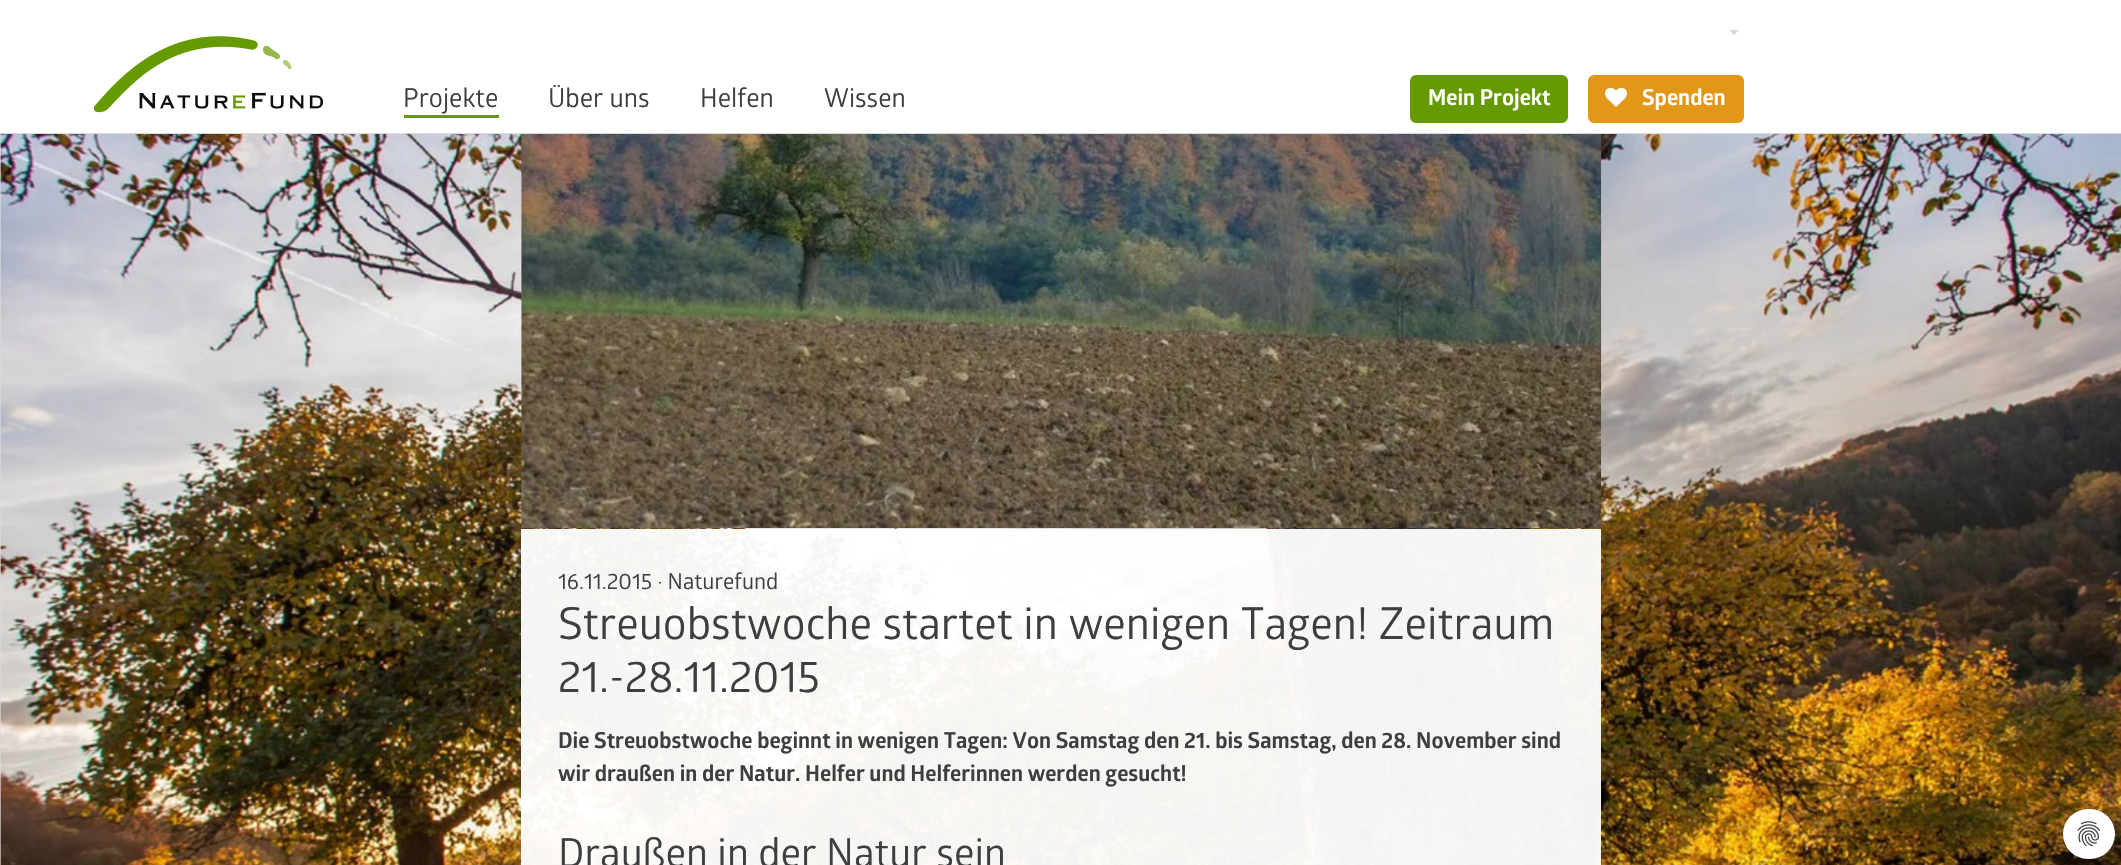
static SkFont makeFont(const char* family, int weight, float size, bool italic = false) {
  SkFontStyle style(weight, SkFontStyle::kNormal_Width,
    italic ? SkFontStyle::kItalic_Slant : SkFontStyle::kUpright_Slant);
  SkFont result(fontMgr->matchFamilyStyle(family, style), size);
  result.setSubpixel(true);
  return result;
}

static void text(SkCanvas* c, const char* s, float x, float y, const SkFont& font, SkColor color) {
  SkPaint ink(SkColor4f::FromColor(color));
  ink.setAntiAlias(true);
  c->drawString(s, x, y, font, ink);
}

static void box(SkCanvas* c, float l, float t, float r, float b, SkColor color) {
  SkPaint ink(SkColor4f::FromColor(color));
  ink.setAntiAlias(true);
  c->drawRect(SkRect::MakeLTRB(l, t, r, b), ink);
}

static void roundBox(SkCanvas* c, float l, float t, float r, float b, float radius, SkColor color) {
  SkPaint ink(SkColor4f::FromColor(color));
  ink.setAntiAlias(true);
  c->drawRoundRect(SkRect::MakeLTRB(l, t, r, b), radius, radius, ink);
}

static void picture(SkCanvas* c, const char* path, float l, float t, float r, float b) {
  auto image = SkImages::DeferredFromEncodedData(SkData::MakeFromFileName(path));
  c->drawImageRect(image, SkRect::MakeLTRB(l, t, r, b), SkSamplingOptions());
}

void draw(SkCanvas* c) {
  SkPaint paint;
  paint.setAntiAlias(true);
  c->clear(0xffd9dadc);
  box(c, 0, 0, 2121, 133, 0xffffffff);
  picture(c, "img_01.png", 94, 36, 323, 113);
  paint.setColor(0xffd9dadc);
  c->drawPath(SkPathBuilder().moveTo(1729, 30).lineTo(1739, 30).lineTo(1734, 35).close().detach(), paint);
  SkFont face1 = makeFont("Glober", 400, 26);
  text(c, "Projekte", 403, 107, face1, 0xff3e3e40);
  box(c, 404, 115, 499, 118, 0xff669a01);
  text(c, "Über uns", 548, 107, face1, 0xff3e3e40);
  text(c, "Helfen", 700, 107, face1, 0xff3e3e40);
  text(c, "Wissen", 824, 107, face1, 0xff3e3e40);
  paint.setColor(0xff669a01);
  c->drawRoundRect(SkRect::MakeLTRB(1411.5f, 76.5f, 1566.5f, 121.5f), 4.5f, 4.5f, paint);
  paint.setStyle(SkPaint::kStroke_Style);
  paint.setStrokeWidth(3);
  c->drawRoundRect(SkRect::MakeLTRB(1411.5f, 76.5f, 1566.5f, 121.5f), 4.5f, 4.5f, paint);
  SkFont face2 = makeFont("Glober", 700, 22);
  text(c, "Mein Projekt", 1428, 105, face2, 0xffffffff);
  paint.setStyle(SkPaint::kFill_Style);
  paint.setColor(0xffe29718);
  c->drawRoundRect(SkRect::MakeLTRB(1589.5f, 76.5f, 1742.5f, 121.5f), 4.5f, 4.5f, paint);
  paint.setStyle(SkPaint::kStroke_Style);
  c->drawRoundRect(SkRect::MakeLTRB(1589.5f, 76.5f, 1742.5f, 121.5f), 4.5f, 4.5f, paint);
  picture(c, "img_02.png", 1605, 87, 1627, 107);
  text(c, "Spenden", 1642, 105, face2, 0xffffffff);
  picture(c, "img_03.png", 0, 134, 2121, 865);
  picture(c, "img_04.png", 521, 134, 1602, 529);
  box(c, 521, 529, 1601, 865, 0xf2ffffff);
  SkFont face3 = makeFont("Glober", 400, 22);
  text(c, "16.11.2015 · Naturefund", 558, 589, face3, 0xff3e3e40);
  SkFont face4 = makeFont("Glober", 400, 44);
  text(c, "Streuobstwoche startet in wenigen Tagen! Zeitraum", 558, 639, face4, 0xff3e3e40);
  text(c, "21.-28.11.2015", 558, 692, face4, 0xff3e3e40);
  text(c, "Die Streuobstwoche beginnt in wenigen Tagen: Von Samstag den 21. bis Samstag, den 28. November sind", 558, 748, face2, 0xff3e3e40);
  text(c, "wir draußen in der Natur. Helfer und Helferinnen werden gesucht!", 558, 781, face2, 0xff3e3e40);
  SkFont face5 = makeFont("Glober", 400, 40);
  text(c, "Draußen in der Natur sein", 558, 867, face5, 0xff3e3e40);
  roundBox(c, 2063, 809, 2115, 859, 25, 0xffffffff);
  picture(c, "img_05.png", 2077, 821, 2100, 847);
}
